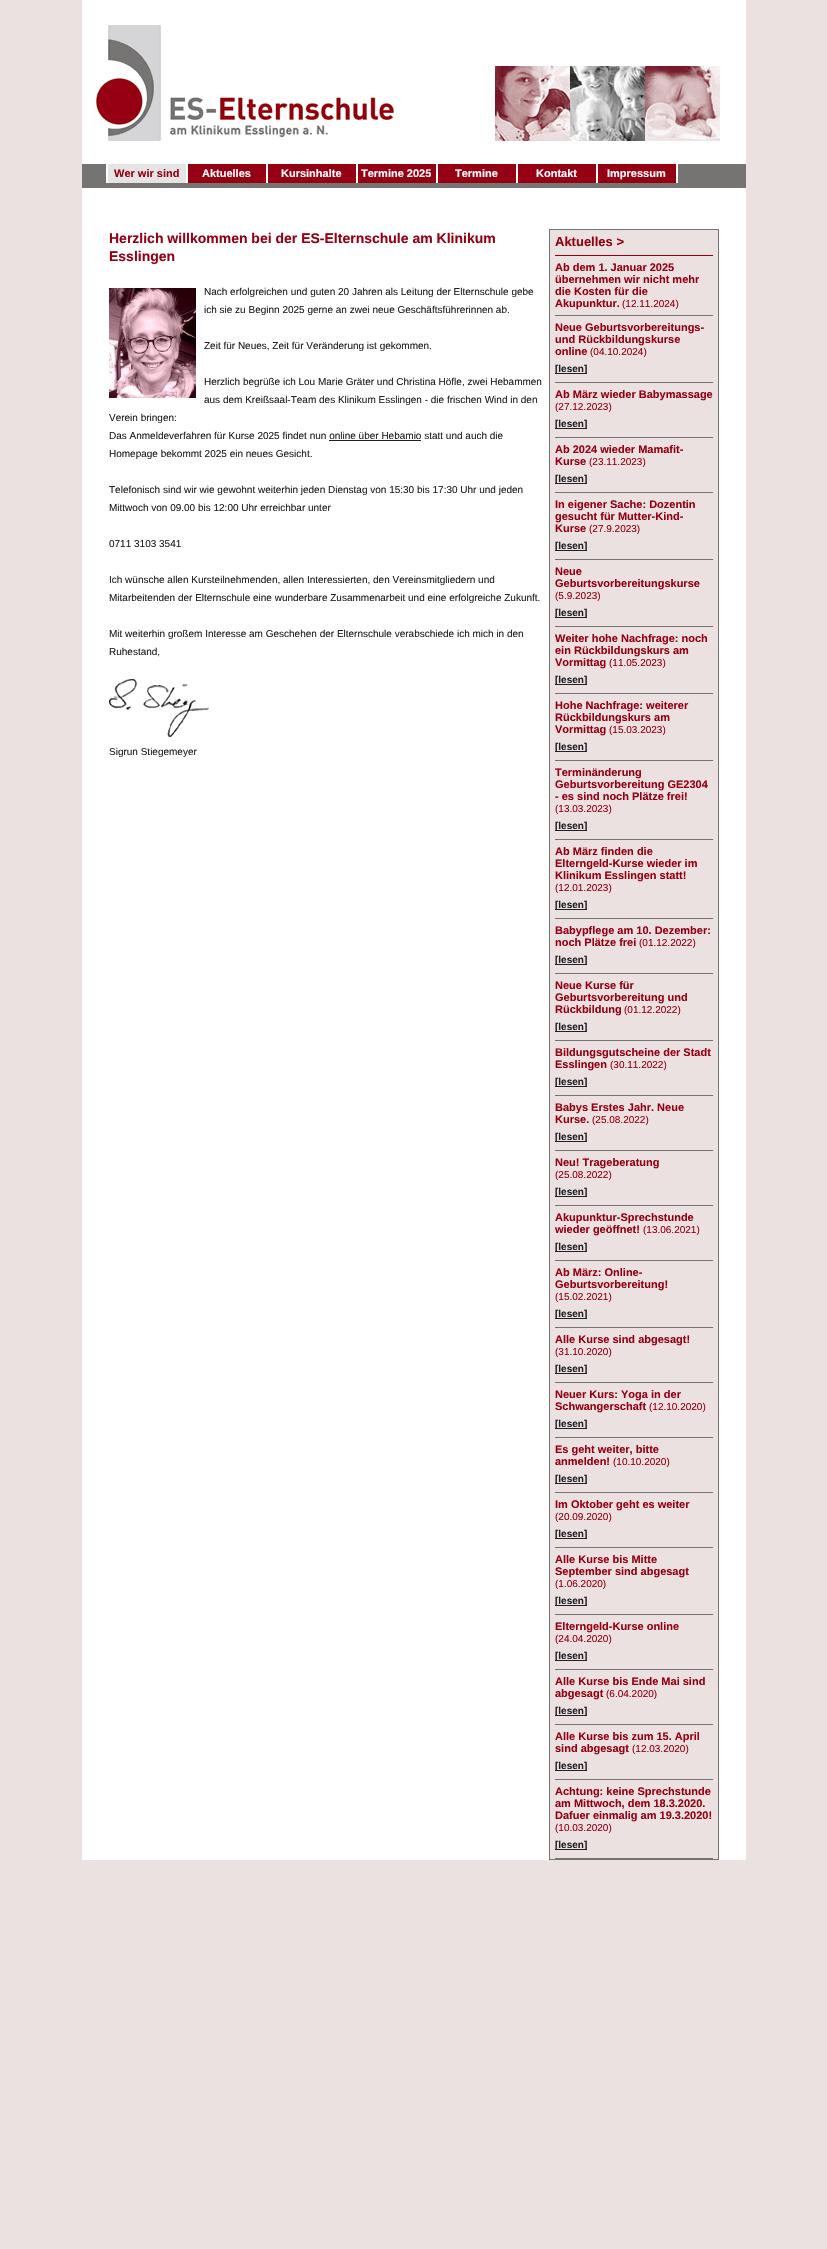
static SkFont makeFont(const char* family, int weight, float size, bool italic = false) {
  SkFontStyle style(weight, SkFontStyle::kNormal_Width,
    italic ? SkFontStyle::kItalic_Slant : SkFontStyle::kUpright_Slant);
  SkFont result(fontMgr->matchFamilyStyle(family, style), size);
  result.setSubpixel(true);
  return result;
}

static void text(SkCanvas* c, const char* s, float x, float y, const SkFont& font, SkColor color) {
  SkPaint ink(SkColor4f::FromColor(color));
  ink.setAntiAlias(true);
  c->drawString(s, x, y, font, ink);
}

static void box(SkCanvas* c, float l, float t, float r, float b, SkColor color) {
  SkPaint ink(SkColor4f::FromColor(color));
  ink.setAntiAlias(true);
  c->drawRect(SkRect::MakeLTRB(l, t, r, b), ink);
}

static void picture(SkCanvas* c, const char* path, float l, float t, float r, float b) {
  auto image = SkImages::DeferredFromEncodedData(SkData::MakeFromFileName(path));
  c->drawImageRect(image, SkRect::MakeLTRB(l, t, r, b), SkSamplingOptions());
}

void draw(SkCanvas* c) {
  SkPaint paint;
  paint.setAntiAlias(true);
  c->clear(0xffece1e1);
  box(c, 82, 0, 746, 1860, 0xffffffff);
  picture(c, "img_01.png", 495, 66, 720, 141);
  picture(c, "img_02.png", 96, 25, 394, 141);
  box(c, 82, 164, 746, 188, 0xff767472);
  box(c, 106, 164, 108, 183, 0xffffffff);
  box(c, 108, 164, 186, 183, 0xffe4e4e4);
  box(c, 186, 164, 188, 183, 0xffffffff);
  SkFont face1 = makeFont("Liberation Sans", 700, 11);
  text(c, "Wer wir sind", 114, 177, face1, 0xff950013);
  box(c, 188, 164, 266, 183, 0xff950013);
  box(c, 266, 164, 268, 183, 0xffffffff);
  text(c, "Aktuelles", 202, 177, face1, 0xffffffff);
  box(c, 268, 164, 356, 183, 0xff950013);
  box(c, 356, 164, 358, 183, 0xffffffff);
  text(c, "Kursinhalte", 281, 177, face1, 0xffffffff);
  box(c, 358, 164, 436, 183, 0xff950013);
  box(c, 436, 164, 438, 183, 0xffffffff);
  text(c, "Termine 2025", 361, 177, face1, 0xffffffff);
  box(c, 438, 164, 516, 183, 0xff950013);
  box(c, 516, 164, 518, 183, 0xffffffff);
  text(c, "Termine", 455, 177, face1, 0xffffffff);
  box(c, 518, 164, 596, 183, 0xff950013);
  box(c, 596, 164, 598, 183, 0xffffffff);
  text(c, "Kontakt", 536, 177, face1, 0xffffffff);
  box(c, 598, 164, 676, 183, 0xff950013);
  box(c, 676, 164, 678, 183, 0xffffffff);
  text(c, "Impressum", 607, 177, face1, 0xffffffff);
  SkFont face2 = makeFont("Liberation Sans", 700, 14);
  text(c, "Herzlich willkommen bei der ES-Elternschule am Klinikum", 109, 243, face2, 0xff950013);
  text(c, "Esslingen", 109, 261, face2, 0xff950013);
  picture(c, "img_03.png", 109, 288, 196, 398);
  SkFont face3 = makeFont("Liberation Sans", 400, 10);
  text(c, "Nach erfolgreichen und guten 20 Jahren als Leitung der Elternschule gebe", 204, 295, face3, 0xff212125);
  text(c, "ich sie zu Beginn 2025 gerne an zwei neue Geschäftsführerinnen ab.", 204, 313, face3, 0xff212125);
  text(c, "Zeit für Neues, Zeit für Veränderung ist gekommen.", 204, 349, face3, 0xff212125);
  text(c, "Herzlich begrüße ich Lou Marie Gräter und Christina Höfle, zwei Hebammen", 204, 385, face3, 0xff212125);
  text(c, "aus dem Kreißsaal-Team des Klinikum Esslingen - die frischen Wind in den", 204, 403, face3, 0xff212125);
  text(c, "Verein bringen:", 109, 421, face3, 0xff212125);
  text(c, "Das Anmeldeverfahren für Kurse 2025 findet nun online über Hebamio statt und auch die", 109, 439, face3, 0xff212125);
  box(c, 329, 440, 421, 441, 0xff212125);
  text(c, "Homepage bekommt 2025 ein neues Gesicht.", 109, 457, face3, 0xff212125);
  text(c, "Telefonisch sind wir wie gewohnt weiterhin jeden Dienstag von 15:30 bis 17:30 Uhr und jeden", 109, 493, face3, 0xff212125);
  text(c, "Mittwoch von 09.00 bis 12:00 Uhr erreichbar unter", 109, 511, face3, 0xff212125);
  text(c, "0711 3103 3541", 109, 547, face3, 0xff212125);
  text(c, "Ich wünsche allen Kursteilnehmenden, allen Interessierten, den Vereinsmitgliedern und", 109, 583, face3, 0xff212125);
  text(c, "Mitarbeitenden der Elternschule eine wunderbare Zusammenarbeit und eine erfolgreiche Zukunft.", 109, 601, face3, 0xff212125);
  text(c, "Mit weiterhin großem Interesse am Geschehen der Elternschule verabschiede ich mich in den", 109, 637, face3, 0xff212125);
  text(c, "Ruhestand,", 109, 655, face3, 0xff212125);
  picture(c, "img_04.png", 109, 679, 209, 737);
  text(c, "Sigrun Stiegemeyer", 109, 755, face3, 0xff212125);
  paint.setColor(0xffece1e1);
  c->drawRect(SkRect::MakeLTRB(549.5f, 229.5f, 718.5f, 1859.5f), paint);
  paint.setStyle(SkPaint::kStroke_Style);
  paint.setStrokeWidth(1);
  paint.setColor(0xff767472);
  c->drawRect(SkRect::MakeLTRB(549.5f, 229.5f, 718.5f, 1859.5f), paint);
  box(c, 555, 255, 713, 256, 0xff950013);
  SkFont face4 = makeFont("Liberation Sans", 700, 13);
  text(c, "Aktuelles >", 555, 246, face4, 0xff950013);
  box(c, 555, 315, 713, 316, 0xff767472);
  text(c, "Ab dem 1. Januar 2025", 555, 271, face1, 0xff950013);
  text(c, "übernehmen wir nicht mehr", 555, 283, face1, 0xff950013);
  text(c, "die Kosten für die", 555, 295, face1, 0xff950013);
  text(c, "Akupunktur.", 555, 307, face1, 0xff950013);
  text(c, "(12.11.2024)", 622, 307, face3, 0xff950013);
  box(c, 555, 382, 713, 383, 0xff767472);
  text(c, "Neue Geburtsvorbereitungs-", 555, 331, face1, 0xff950013);
  text(c, "und Rückbildungskurse", 555, 343, face1, 0xff950013);
  text(c, "online", 555, 355, face1, 0xff950013);
  text(c, "(04.10.2024)", 590, 355, face3, 0xff950013);
  box(c, 555, 373, 587, 374, 0xff212125);
  SkFont face5 = makeFont("Liberation Sans", 700, 10);
  text(c, "[lesen]", 555, 372, face5, 0xff212125);
  box(c, 555, 437, 713, 438, 0xff767472);
  text(c, "Ab März wieder Babymassage", 555, 398, face1, 0xff950013);
  text(c, "(27.12.2023)", 555, 410, face3, 0xff950013);
  box(c, 555, 428, 587, 429, 0xff212125);
  text(c, "[lesen]", 555, 427, face5, 0xff212125);
  box(c, 555, 492, 713, 493, 0xff767472);
  text(c, "Ab 2024 wieder Mamafit-", 555, 453, face1, 0xff950013);
  text(c, "Kurse", 555, 465, face1, 0xff950013);
  text(c, "(23.11.2023)", 589, 465, face3, 0xff950013);
  box(c, 555, 483, 587, 484, 0xff212125);
  text(c, "[lesen]", 555, 482, face5, 0xff212125);
  box(c, 555, 559, 713, 560, 0xff767472);
  text(c, "In eigener Sache: Dozentin", 555, 508, face1, 0xff950013);
  text(c, "gesucht für Mutter-Kind-", 555, 520, face1, 0xff950013);
  text(c, "Kurse", 555, 532, face1, 0xff950013);
  text(c, "(27.9.2023)", 589, 532, face3, 0xff950013);
  box(c, 555, 550, 587, 551, 0xff212125);
  text(c, "[lesen]", 555, 549, face5, 0xff212125);
  box(c, 555, 626, 713, 627, 0xff767472);
  text(c, "Neue", 555, 575, face1, 0xff950013);
  text(c, "Geburtsvorbereitungskurse", 555, 587, face1, 0xff950013);
  text(c, "(5.9.2023)", 555, 599, face3, 0xff950013);
  box(c, 555, 617, 587, 618, 0xff212125);
  text(c, "[lesen]", 555, 616, face5, 0xff212125);
  box(c, 555, 693, 713, 694, 0xff767472);
  text(c, "Weiter hohe Nachfrage: noch", 555, 642, face1, 0xff950013);
  text(c, "ein Rückbildungskurs am", 555, 654, face1, 0xff950013);
  text(c, "Vormittag", 555, 666, face1, 0xff950013);
  text(c, "(11.05.2023)", 609, 666, face3, 0xff950013);
  box(c, 555, 684, 587, 685, 0xff212125);
  text(c, "[lesen]", 555, 683, face5, 0xff212125);
  box(c, 555, 760, 713, 761, 0xff767472);
  text(c, "Hohe Nachfrage: weiterer", 555, 709, face1, 0xff950013);
  text(c, "Rückbildungskurs am", 555, 721, face1, 0xff950013);
  text(c, "Vormittag", 555, 733, face1, 0xff950013);
  text(c, "(15.03.2023)", 609, 733, face3, 0xff950013);
  box(c, 555, 751, 587, 752, 0xff212125);
  text(c, "[lesen]", 555, 750, face5, 0xff212125);
  box(c, 555, 839, 713, 840, 0xff767472);
  text(c, "Terminänderung", 555, 776, face1, 0xff950013);
  text(c, "Geburtsvorbereitung GE2304", 555, 788, face1, 0xff950013);
  text(c, "- es sind noch Plätze frei!", 555, 800, face1, 0xff950013);
  text(c, "(13.03.2023)", 555, 812, face3, 0xff950013);
  box(c, 555, 830, 587, 831, 0xff212125);
  text(c, "[lesen]", 555, 829, face5, 0xff212125);
  box(c, 555, 918, 713, 919, 0xff767472);
  text(c, "Ab März finden die", 555, 855, face1, 0xff950013);
  text(c, "Elterngeld-Kurse wieder im", 555, 867, face1, 0xff950013);
  text(c, "Klinikum Esslingen statt!", 555, 879, face1, 0xff950013);
  text(c, "(12.01.2023)", 555, 891, face3, 0xff950013);
  box(c, 555, 909, 587, 910, 0xff212125);
  text(c, "[lesen]", 555, 908, face5, 0xff212125);
  box(c, 555, 973, 713, 974, 0xff767472);
  text(c, "Babypflege am 10. Dezember:", 555, 934, face1, 0xff950013);
  text(c, "noch Plätze frei", 555, 946, face1, 0xff950013);
  text(c, "(01.12.2022)", 639, 946, face3, 0xff950013);
  box(c, 555, 964, 587, 965, 0xff212125);
  text(c, "[lesen]", 555, 963, face5, 0xff212125);
  box(c, 555, 1040, 713, 1041, 0xff767472);
  text(c, "Neue Kurse für", 555, 989, face1, 0xff950013);
  text(c, "Geburtsvorbereitung und", 555, 1001, face1, 0xff950013);
  text(c, "Rückbildung", 555, 1013, face1, 0xff950013);
  text(c, "(01.12.2022)", 624, 1013, face3, 0xff950013);
  box(c, 555, 1031, 587, 1032, 0xff212125);
  text(c, "[lesen]", 555, 1030, face5, 0xff212125);
  box(c, 555, 1095, 713, 1096, 0xff767472);
  text(c, "Bildungsgutscheine der Stadt", 555, 1056, face1, 0xff950013);
  text(c, "Esslingen", 555, 1068, face1, 0xff950013);
  text(c, "(30.11.2022)", 610, 1068, face3, 0xff950013);
  box(c, 555, 1086, 587, 1087, 0xff212125);
  text(c, "[lesen]", 555, 1085, face5, 0xff212125);
  box(c, 555, 1150, 713, 1151, 0xff767472);
  text(c, "Babys Erstes Jahr. Neue", 555, 1111, face1, 0xff950013);
  text(c, "Kurse.", 555, 1123, face1, 0xff950013);
  text(c, "(25.08.2022)", 592, 1123, face3, 0xff950013);
  box(c, 555, 1141, 587, 1142, 0xff212125);
  text(c, "[lesen]", 555, 1140, face5, 0xff212125);
  box(c, 555, 1205, 713, 1206, 0xff767472);
  text(c, "Neu! Trageberatung", 555, 1166, face1, 0xff950013);
  text(c, "(25.08.2022)", 555, 1178, face3, 0xff950013);
  box(c, 555, 1196, 587, 1197, 0xff212125);
  text(c, "[lesen]", 555, 1195, face5, 0xff212125);
  box(c, 555, 1260, 713, 1261, 0xff767472);
  text(c, "Akupunktur-Sprechstunde", 555, 1221, face1, 0xff950013);
  text(c, "wieder geöffnet!", 555, 1233, face1, 0xff950013);
  text(c, "(13.06.2021)", 643, 1233, face3, 0xff950013);
  box(c, 555, 1251, 587, 1252, 0xff212125);
  text(c, "[lesen]", 555, 1250, face5, 0xff212125);
  box(c, 555, 1327, 713, 1328, 0xff767472);
  text(c, "Ab März: Online-", 555, 1276, face1, 0xff950013);
  text(c, "Geburtsvorbereitung!", 555, 1288, face1, 0xff950013);
  text(c, "(15.02.2021)", 555, 1300, face3, 0xff950013);
  box(c, 555, 1318, 587, 1319, 0xff212125);
  text(c, "[lesen]", 555, 1317, face5, 0xff212125);
  box(c, 555, 1382, 713, 1383, 0xff767472);
  text(c, "Alle Kurse sind abgesagt!", 555, 1343, face1, 0xff950013);
  text(c, "(31.10.2020)", 555, 1355, face3, 0xff950013);
  box(c, 555, 1373, 587, 1374, 0xff212125);
  text(c, "[lesen]", 555, 1372, face5, 0xff212125);
  box(c, 555, 1437, 713, 1438, 0xff767472);
  text(c, "Neuer Kurs: Yoga in der", 555, 1398, face1, 0xff950013);
  text(c, "Schwangerschaft", 555, 1410, face1, 0xff950013);
  text(c, "(12.10.2020)", 649, 1410, face3, 0xff950013);
  box(c, 555, 1428, 587, 1429, 0xff212125);
  text(c, "[lesen]", 555, 1427, face5, 0xff212125);
  box(c, 555, 1492, 713, 1493, 0xff767472);
  text(c, "Es geht weiter, bitte", 555, 1453, face1, 0xff950013);
  text(c, "anmelden!", 555, 1465, face1, 0xff950013);
  text(c, "(10.10.2020)", 613, 1465, face3, 0xff950013);
  box(c, 555, 1483, 587, 1484, 0xff212125);
  text(c, "[lesen]", 555, 1482, face5, 0xff212125);
  box(c, 555, 1547, 713, 1548, 0xff767472);
  text(c, "Im Oktober geht es weiter", 555, 1508, face1, 0xff950013);
  text(c, "(20.09.2020)", 555, 1520, face3, 0xff950013);
  box(c, 555, 1538, 587, 1539, 0xff212125);
  text(c, "[lesen]", 555, 1537, face5, 0xff212125);
  box(c, 555, 1614, 713, 1615, 0xff767472);
  text(c, "Alle Kurse bis Mitte", 555, 1563, face1, 0xff950013);
  text(c, "September sind abgesagt", 555, 1575, face1, 0xff950013);
  text(c, "(1.06.2020)", 555, 1587, face3, 0xff950013);
  box(c, 555, 1605, 587, 1606, 0xff212125);
  text(c, "[lesen]", 555, 1604, face5, 0xff212125);
  box(c, 555, 1669, 713, 1670, 0xff767472);
  text(c, "Elterngeld-Kurse online", 555, 1630, face1, 0xff950013);
  text(c, "(24.04.2020)", 555, 1642, face3, 0xff950013);
  box(c, 555, 1660, 587, 1661, 0xff212125);
  text(c, "[lesen]", 555, 1659, face5, 0xff212125);
  box(c, 555, 1724, 713, 1725, 0xff767472);
  text(c, "Alle Kurse bis Ende Mai sind", 555, 1685, face1, 0xff950013);
  text(c, "abgesagt", 555, 1697, face1, 0xff950013);
  text(c, "(6.04.2020)", 606, 1697, face3, 0xff950013);
  box(c, 555, 1715, 587, 1716, 0xff212125);
  text(c, "[lesen]", 555, 1714, face5, 0xff212125);
  box(c, 555, 1779, 713, 1780, 0xff767472);
  text(c, "Alle Kurse bis zum 15. April", 555, 1740, face1, 0xff950013);
  text(c, "sind abgesagt", 555, 1752, face1, 0xff950013);
  text(c, "(12.03.2020)", 632, 1752, face3, 0xff950013);
  box(c, 555, 1770, 587, 1771, 0xff212125);
  text(c, "[lesen]", 555, 1769, face5, 0xff212125);
  box(c, 555, 1858, 713, 1859, 0xff767472);
  text(c, "Achtung: keine Sprechstunde", 555, 1795, face1, 0xff950013);
  text(c, "am Mittwoch, dem 18.3.2020.", 555, 1807, face1, 0xff950013);
  text(c, "Dafuer einmalig am 19.3.2020!", 555, 1819, face1, 0xff950013);
  text(c, "(10.03.2020)", 555, 1831, face3, 0xff950013);
  box(c, 555, 1849, 587, 1850, 0xff212125);
  text(c, "[lesen]", 555, 1848, face5, 0xff212125);
}
